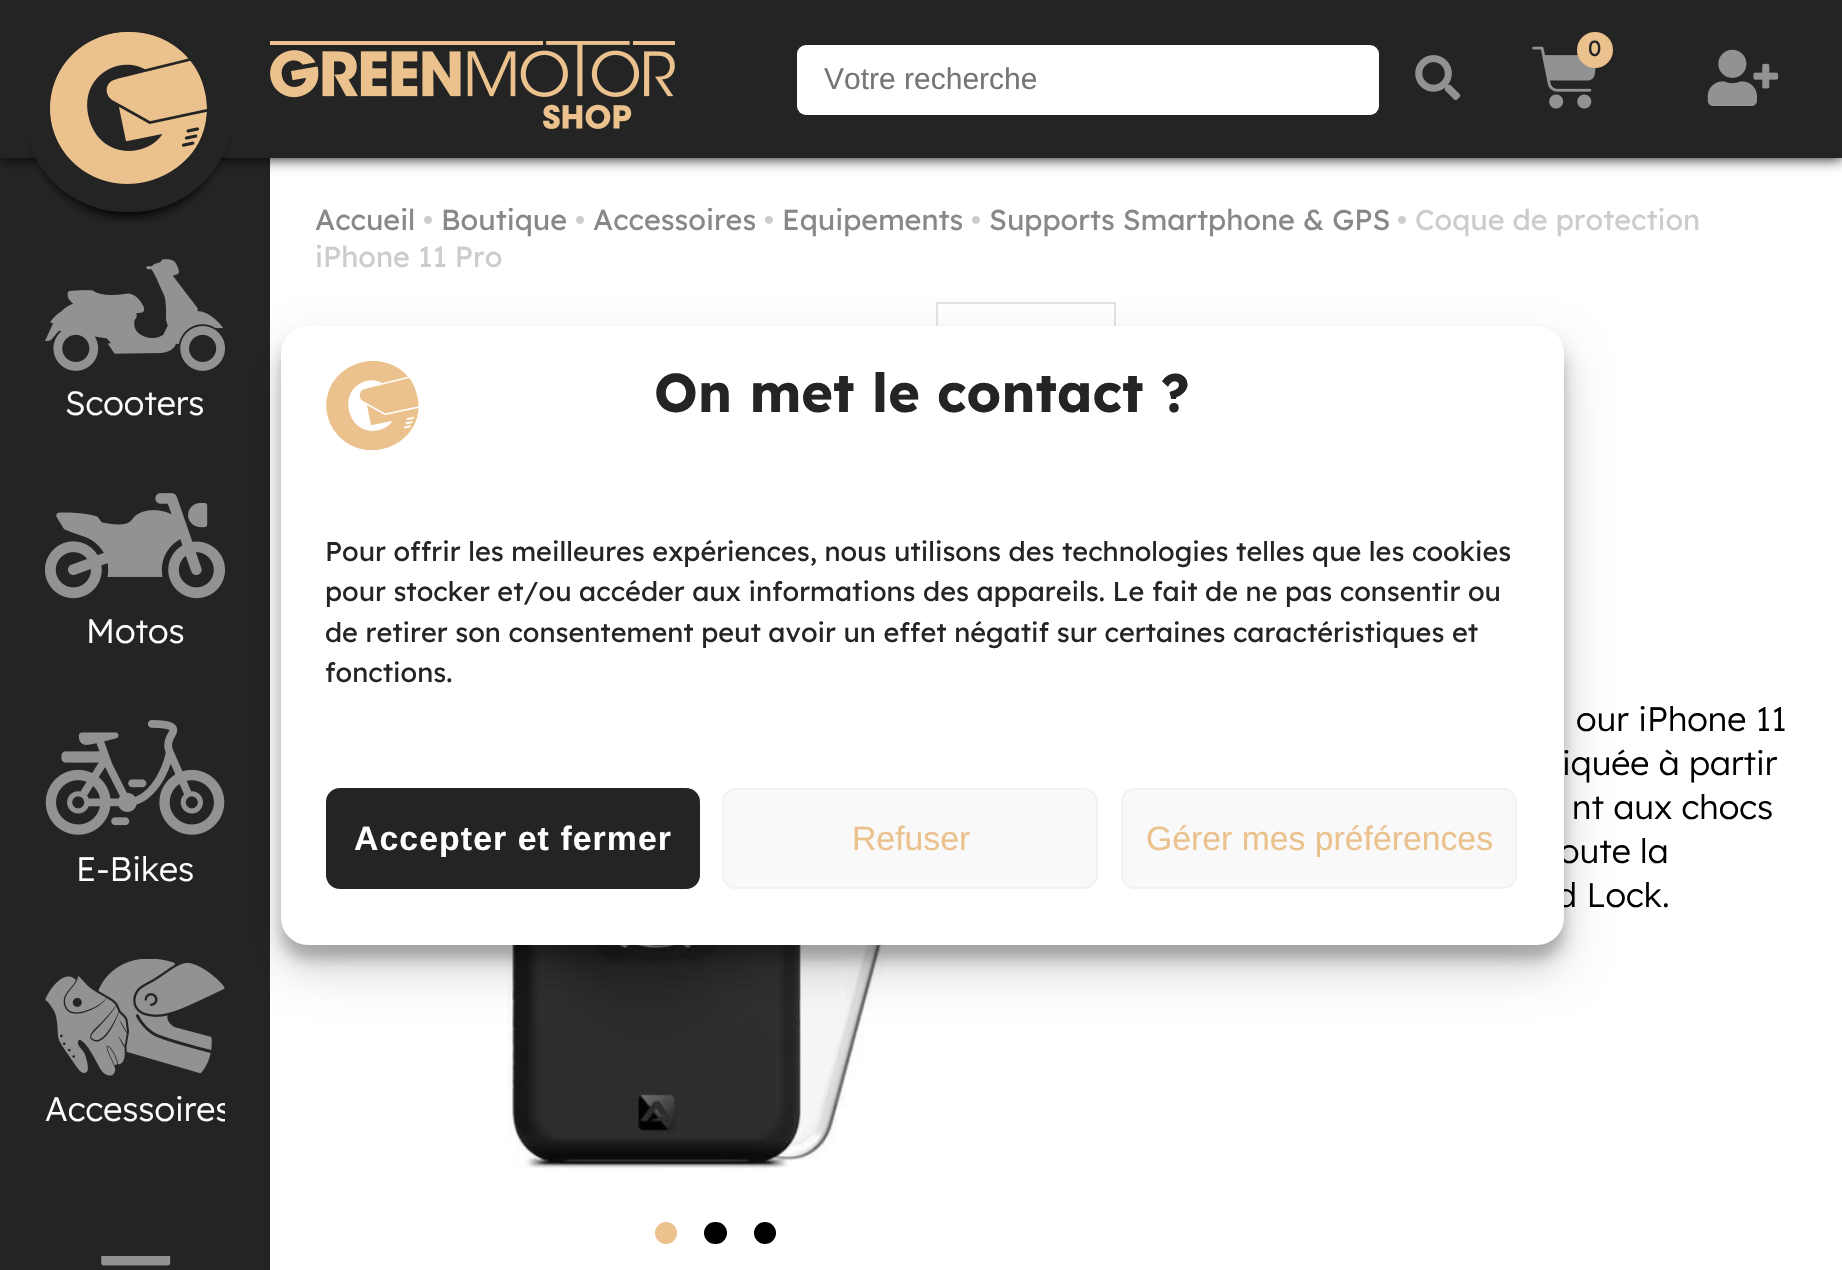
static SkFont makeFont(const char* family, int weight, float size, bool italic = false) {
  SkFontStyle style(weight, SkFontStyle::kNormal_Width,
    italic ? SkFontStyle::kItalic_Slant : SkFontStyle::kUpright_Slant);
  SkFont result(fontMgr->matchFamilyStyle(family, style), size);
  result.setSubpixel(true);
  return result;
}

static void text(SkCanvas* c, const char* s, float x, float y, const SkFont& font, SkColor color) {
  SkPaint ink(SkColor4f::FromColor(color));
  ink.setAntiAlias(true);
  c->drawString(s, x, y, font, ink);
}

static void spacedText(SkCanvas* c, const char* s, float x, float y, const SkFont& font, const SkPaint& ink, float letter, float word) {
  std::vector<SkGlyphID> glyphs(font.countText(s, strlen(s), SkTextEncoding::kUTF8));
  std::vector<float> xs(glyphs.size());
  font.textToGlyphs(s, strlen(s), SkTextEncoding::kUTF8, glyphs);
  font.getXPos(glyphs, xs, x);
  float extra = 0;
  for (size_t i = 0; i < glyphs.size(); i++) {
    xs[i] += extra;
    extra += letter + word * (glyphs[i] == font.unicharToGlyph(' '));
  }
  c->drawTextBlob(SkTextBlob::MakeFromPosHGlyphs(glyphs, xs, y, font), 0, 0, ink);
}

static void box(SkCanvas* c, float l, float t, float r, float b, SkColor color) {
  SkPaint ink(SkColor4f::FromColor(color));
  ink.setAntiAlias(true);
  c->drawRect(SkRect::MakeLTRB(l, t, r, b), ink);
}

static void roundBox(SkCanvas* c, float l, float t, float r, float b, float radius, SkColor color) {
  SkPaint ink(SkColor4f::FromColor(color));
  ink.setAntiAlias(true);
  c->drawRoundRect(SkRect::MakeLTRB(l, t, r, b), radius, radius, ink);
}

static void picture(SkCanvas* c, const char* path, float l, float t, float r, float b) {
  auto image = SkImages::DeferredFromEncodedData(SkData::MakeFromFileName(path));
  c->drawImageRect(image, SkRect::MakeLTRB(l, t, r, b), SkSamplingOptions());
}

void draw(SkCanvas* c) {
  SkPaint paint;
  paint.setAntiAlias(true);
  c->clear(0xffffffff);
  box(c, 0, 158, 270, 1270, 0xff242424);
  paint.setColor(0xff000000);
  paint.setMaskFilter(SkMaskFilter::MakeBlur(kNormal_SkBlurStyle, 7));
  c->drawRect(SkRect::MakeLTRB(0, 0, 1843, 158), paint);
  paint.setMaskFilter(nullptr);
  box(c, 0, 0, 1842, 158, 0xff242424);
  c->save();
  c->clipPath(SkPathBuilder(SkPathFillType::kEvenOdd).moveTo(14, 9).lineTo(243, 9).lineTo(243, 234).lineTo(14, 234).close().moveTo(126.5f, 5).lineTo(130.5f, 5).cubicTo(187.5f, 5, 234, 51.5f, 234, 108.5f).cubicTo(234, 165.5f, 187.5f, 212, 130.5f, 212).lineTo(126.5f, 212).cubicTo(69.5f, 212, 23, 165.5f, 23, 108.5f).cubicTo(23, 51.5f, 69.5f, 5, 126.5f, 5).close().detach(), true);
  paint.setMaskFilter(SkMaskFilter::MakeBlur(kNormal_SkBlurStyle, 5.5f));
  c->drawRoundRect(SkRect::MakeLTRB(32, 27, 225, 216), 94.5f, 94.5f, paint);
  paint.setMaskFilter(nullptr);
  c->restore();
  paint.setStyle(SkPaint::kStroke_Style);
  paint.setStrokeWidth(27);
  paint.setColor(0xff242424);
  c->drawRoundRect(SkRect::MakeLTRB(36.5f, 18.5f, 220.5f, 198.5f), 90, 90, paint);
  picture(c, "img_01.png", 50, 32, 207, 184);
  picture(c, "img_02.png", 270, 41, 675, 129);
  roundBox(c, 797, 45, 1379, 115, 9, 0xffffffff);
  SkFont face1 = makeFont("Liberation Sans", 400, 30);
  text(c, "Votre recherche", 824, 89, face1, 0xff757575);
  picture(c, "img_03.png", 1415, 55, 1461, 101);
  picture(c, "img_04.png", 1532, 46, 1596, 109);
  paint.setStyle(SkPaint::kFill_Style);
  paint.setColor(0xffebc28e);
  c->drawCircle(1595, 50, 18, paint);
  SkFont face2 = makeFont("Lexend Deca", 400, 22);
  text(c, "0", 1588, 56, face2, 0xff242424);
  picture(c, "img_05.png", 1707, 49, 1779, 106);
  picture(c, "img_06.png", 45, 259, 225, 371);
  SkFont face3 = makeFont("Lexend Deca", 300, 33.75f);
  text(c, "Scooters", 65, 415, face3, 0xffffffff);
  picture(c, "img_07.png", 45, 493, 225, 599);
  text(c, "Motos", 86, 643, face3, 0xffffffff);
  picture(c, "img_08.png", 45, 720, 225, 835);
  text(c, "E-Bikes", 76, 881, face3, 0xffffffff);
  picture(c, "img_09.png", 45, 959, 225, 1076);
  c->save();
  c->clipRect(SkRect::MakeLTRB(45, 959, 225, 1154));
  text(c, "Accessoires", 45, 1121, face3, 0xffffffff);
  c->restore();
  picture(c, "img_10.png", 101, 1256, 171, 1266);
  SkFont face4 = makeFont("Lexend Deca", 400, 28.75f);
  text(c, "Accueil", 315, 230, face4, 0xff888888);
  text(c, "•", 423, 230, face4, 0xffcccccc);
  text(c, "Boutique", 441, 230, face4, 0xff888888);
  text(c, "•", 575, 230, face4, 0xffcccccc);
  text(c, "Accessoires", 593, 230, face4, 0xff888888);
  text(c, "•", 764, 230, face4, 0xffcccccc);
  text(c, "Equipements", 782, 230, face4, 0xff888888);
  text(c, "•", 971, 230, face4, 0xffcccccc);
  text(c, "Supports Smartphone & GPS", 989, 230, face4, 0xff888888);
  text(c, "• Coque de protection", 1397, 230, face4, 0xffcccccc);
  text(c, "iPhone 11 Pro", 315, 267, face4, 0xffcccccc);
  paint.setStyle(SkPaint::kStroke_Style);
  paint.setStrokeWidth(2);
  paint.setColor(0xffe3e3e3);
  c->drawRect(SkRect::MakeLTRB(937, 303, 1115, 517), paint);
  text(c, "our iPhone 11", 1576, 731, face3, 0xff000000);
  text(c, "iquée à partir", 1562, 775, face3, 0xff000000);
  text(c, "nt aux chocs", 1572, 819, face3, 0xff000000);
  text(c, "oute la", 1559, 863, face3, 0xff000000);
  text(c, "d Lock.", 1556, 907, face3, 0xff000000);
  picture(c, "img_11.png", 507, 945, 948, 1169);
  paint.setStyle(SkPaint::kFill_Style);
  paint.setColor(0xffebc28e);
  c->drawCircle(666, 1233, 11, paint);
  roundBox(c, 704, 1222, 727, 1244, 11, 0xff000000);
  paint.setColor(0xff000000);
  c->drawCircle(765, 1233, 11, paint);
  paint.setColor(0x3b000000);
  paint.setMaskFilter(SkMaskFilter::MakeBlur(kNormal_SkBlurStyle, 7));
  c->drawRoundRect(SkRect::MakeLTRB(281, 340, 1564, 959), 27, 27, paint);
  paint.setMaskFilter(nullptr);
  paint.setColor(0x30000000);
  paint.setMaskFilter(SkMaskFilter::MakeBlur(kNormal_SkBlurStyle, 22.5f));
  c->drawRoundRect(SkRect::MakeLTRB(281, 349, 1564, 968), 27, 27, paint);
  paint.setMaskFilter(nullptr);
  roundBox(c, 281, 326, 1564, 945, 27, 0xffffffff);
  picture(c, "img_12.png", 326, 360, 419, 450);
  SkFont face5 = makeFont("Lexend Deca", 700, 54);
  text(c, "On met le contact ?", 654, 412, face5, 0xff242424);
  SkFont face6 = makeFont("Lexend Deca", 400, 27);
  text(c, "Pour offrir les meilleures expériences, nous utilisons des technologies telles que les cookies", 325, 561, face6, 0xff242424);
  text(c, "pour stocker et/ou accéder aux informations des appareils. Le fait de ne pas consentir ou", 325, 601, face6, 0xff242424);
  text(c, "de retirer son consentement peut avoir un effet négatif sur certaines caractéristiques et", 325, 642, face6, 0xff242424);
  text(c, "fonctions.", 325, 682, face6, 0xff242424);
  paint.setColor(0xff242424);
  c->drawRoundRect(SkRect::MakeLTRB(327, 789, 699, 888), 13, 13, paint);
  paint.setStyle(SkPaint::kStroke_Style);
  c->drawRoundRect(SkRect::MakeLTRB(327, 789, 699, 888), 13, 13, paint);
  SkFont face7 = makeFont("Liberation Sans", 700, 33.75f);
  paint.setStyle(SkPaint::kFill_Style);
  paint.setColor(0xffffffff);
  spacedText(c, "Accepter et fermer", 354, 850, face7, paint, 1.1f, 0);
  paint.setColor(0xfff9f9f9);
  c->drawRoundRect(SkRect::MakeLTRB(723, 789, 1097, 888), 13, 13, paint);
  paint.setStyle(SkPaint::kStroke_Style);
  paint.setColor(0xfff2f2f2);
  c->drawRoundRect(SkRect::MakeLTRB(723, 789, 1097, 888), 13, 13, paint);
  SkFont face8 = makeFont("Liberation Sans", 400, 33.75f);
  text(c, "Refuser", 852, 850, face8, 0xffebc28e);
  paint.setStyle(SkPaint::kFill_Style);
  paint.setColor(0xfff9f9f9);
  c->drawRoundRect(SkRect::MakeLTRB(1122, 789, 1516, 888), 13, 13, paint);
  paint.setStyle(SkPaint::kStroke_Style);
  paint.setColor(0xfff2f2f2);
  c->drawRoundRect(SkRect::MakeLTRB(1122, 789, 1516, 888), 13, 13, paint);
  text(c, "Gérer mes préférences", 1146, 850, face8, 0xffebc28e);
}
